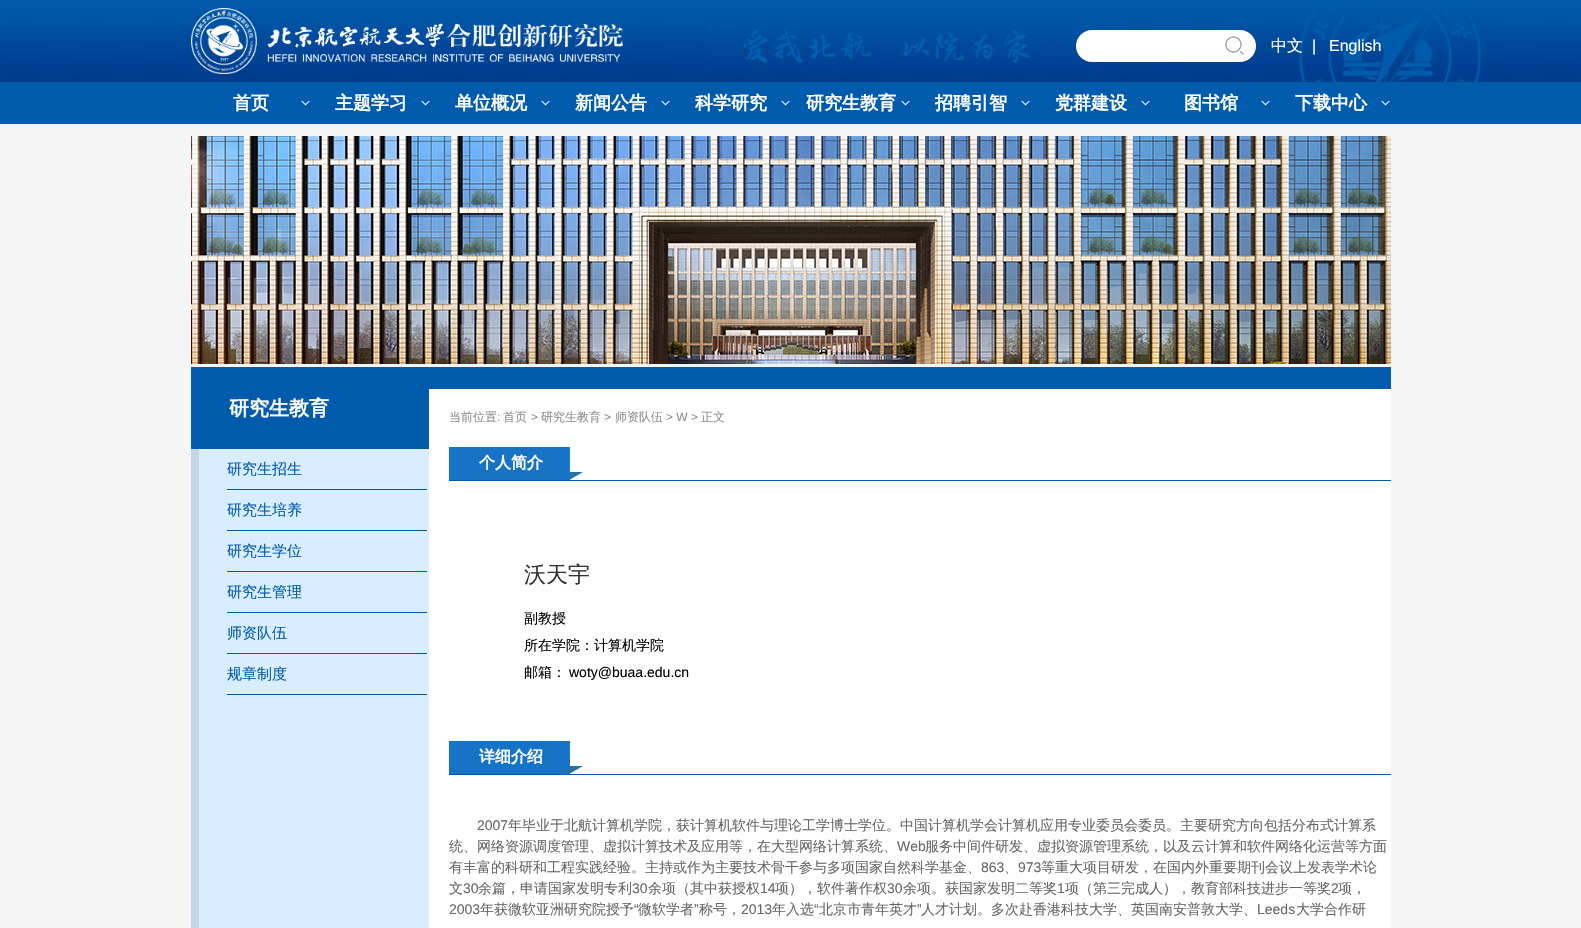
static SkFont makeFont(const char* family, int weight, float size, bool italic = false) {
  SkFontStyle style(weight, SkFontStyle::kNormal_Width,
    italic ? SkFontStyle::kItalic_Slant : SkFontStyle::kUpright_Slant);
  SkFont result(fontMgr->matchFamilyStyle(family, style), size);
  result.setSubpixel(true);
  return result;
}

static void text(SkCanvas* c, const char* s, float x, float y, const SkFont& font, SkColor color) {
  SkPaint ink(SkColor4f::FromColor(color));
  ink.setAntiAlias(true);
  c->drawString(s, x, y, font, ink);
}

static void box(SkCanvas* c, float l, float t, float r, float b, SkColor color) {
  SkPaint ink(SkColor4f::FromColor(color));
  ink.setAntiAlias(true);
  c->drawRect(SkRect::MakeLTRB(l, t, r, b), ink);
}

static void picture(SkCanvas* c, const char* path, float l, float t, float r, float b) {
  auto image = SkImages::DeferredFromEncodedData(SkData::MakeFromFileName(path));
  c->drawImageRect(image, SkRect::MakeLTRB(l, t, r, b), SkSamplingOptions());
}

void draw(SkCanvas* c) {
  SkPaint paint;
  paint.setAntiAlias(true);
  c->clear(0xffffffff);
  picture(c, "img_01.png", 0, 0, 1581, 82);
  picture(c, "img_02.png", 191, 8, 623, 74);
  picture(c, "img_03.png", 1076, 30, 1256, 62);
  picture(c, "img_04.png", 1225, 36, 1244, 55);
  SkFont face1 = makeFont("WenQuanYi Zen Hei", 500, 16);
  text(c, "中文", 1271, 51, face1, 0xffffffff);
  SkFont face2 = makeFont("Liberation Sans", 400, 16);
  text(c, "|", 1312, 51, face2, 0xffffffff);
  text(c, "English", 1329, 51, face2, 0xffffffff);
  box(c, 0, 82, 1581, 124, 0xff005bac);
  picture(c, "img_05.png", 301, 101, 310, 106);
  SkFont face3 = makeFont("WenQuanYi Zen Hei", 700, 18);
  text(c, "首页", 233, 109, face3, 0xffffffff);
  picture(c, "img_05.png", 421, 101, 430, 106);
  text(c, "主题学习", 335, 109, face3, 0xffffffff);
  picture(c, "img_05.png", 541, 101, 550, 106);
  text(c, "单位概况", 455, 109, face3, 0xffffffff);
  picture(c, "img_05.png", 661, 101, 670, 106);
  text(c, "新闻公告", 575, 109, face3, 0xffffffff);
  picture(c, "img_05.png", 781, 101, 790, 106);
  text(c, "科学研究", 695, 109, face3, 0xffffffff);
  picture(c, "img_05.png", 901, 101, 910, 106);
  text(c, "研究生教育", 806, 109, face3, 0xffffffff);
  picture(c, "img_05.png", 1021, 101, 1030, 106);
  text(c, "招聘引智", 935, 109, face3, 0xffffffff);
  picture(c, "img_05.png", 1141, 101, 1150, 106);
  text(c, "党群建设", 1055, 109, face3, 0xffffffff);
  picture(c, "img_05.png", 1261, 101, 1270, 106);
  text(c, "图书馆", 1184, 109, face3, 0xffffffff);
  picture(c, "img_05.png", 1381, 101, 1390, 106);
  text(c, "下载中心", 1295, 109, face3, 0xffffffff);
  box(c, 0, 124, 1581, 928, 0xfff5f5f5);
  picture(c, "img_06.png", 191, 136, 1391, 364);
  box(c, 191, 367, 1391, 449, 0xff005bac);
  SkFont face4 = makeFont("WenQuanYi Zen Hei", 700, 20);
  text(c, "研究生教育", 229, 415, face4, 0xffffffff);
  box(c, 199, 449, 429, 928, 0xffd8edff);
  box(c, 191, 449, 199, 928, 0xffc4d6e6);
  box(c, 227, 489, 427, 490, 0xff005bac);
  SkFont face5 = makeFont("WenQuanYi Zen Hei", 500, 15);
  text(c, "研究生招生", 227, 474, face5, 0xff005bac);
  box(c, 227, 530, 427, 531, 0xff005bac);
  text(c, "研究生培养", 227, 515, face5, 0xff005bac);
  box(c, 227, 571, 427, 572, 0xff005bac);
  text(c, "研究生学位", 227, 556, face5, 0xff005bac);
  box(c, 227, 612, 427, 613, 0xff005bac);
  text(c, "研究生管理", 227, 597, face5, 0xff005bac);
  box(c, 227, 653, 427, 654, 0xff005bac);
  text(c, "师资队伍", 227, 638, face5, 0xff005bac);
  box(c, 227, 694, 427, 695, 0xff005bac);
  text(c, "规章制度", 227, 679, face5, 0xff005bac);
  box(c, 429, 389, 1391, 928, 0xffffffff);
  SkFont face6 = makeFont("WenQuanYi Zen Hei", 500, 12);
  text(c, "当前位置", 449, 421, face6, 0xff8d8d8d);
  SkFont face7 = makeFont("Liberation Sans", 400, 12);
  text(c, ":", 497, 421, face7, 0xff8d8d8d);
  text(c, "首页", 503, 421, face6, 0xff8d8d8d);
  text(c, ">", 531, 421, face7, 0xff8d8d8d);
  text(c, "研究生教育", 541, 421, face6, 0xff8d8d8d);
  text(c, ">", 604, 421, face7, 0xff8d8d8d);
  text(c, "师资队伍", 615, 421, face6, 0xff8d8d8d);
  text(c, "> W >", 666, 421, face7, 0xff8d8d8d);
  text(c, "正文", 701, 421, face6, 0xff8d8d8d);
  picture(c, "img_07.png", 449, 447, 583, 480);
  box(c, 449, 480, 1391, 481, 0xff005bac);
  picture(c, "img_08.png", 569, 472, 582, 480);
  SkFont face8 = makeFont("WenQuanYi Zen Hei", 700, 16);
  text(c, "个人简介", 479, 468, face8, 0xffffffff);
  SkFont face9 = makeFont("WenQuanYi Zen Hei", 500, 22);
  text(c, "沃天宇", 524, 582, face9, 0xff333333);
  SkFont face10 = makeFont("WenQuanYi Zen Hei", 500, 14);
  text(c, "副教授", 524, 623, face10, 0xff000000);
  text(c, "所在学院：计算机学院", 524, 650, face10, 0xff000000);
  text(c, "邮箱：", 524, 677, face10, 0xff000000);
  SkFont face11 = makeFont("Liberation Sans", 400, 14);
  text(c, "woty@buaa.edu.cn", 569, 677, face11, 0xff000000);
  picture(c, "img_07.png", 449, 741, 583, 774);
  box(c, 449, 774, 1391, 775, 0xff005bac);
  picture(c, "img_08.png", 569, 766, 582, 774);
  text(c, "详细介绍", 479, 762, face8, 0xffffffff);
  text(c, "2007", 477, 830, face11, 0xff666666);
  text(c, "年毕业于北航计算机学院，获计算机软件与理论工学博士学位。中国计算机学会计算机应用专业委员会委员。主要研究方向包括分布式计算系", 508, 830, face10, 0xff666666);
  text(c, "统、网络资源调度管理、虚拟计算技术及应用等，在大型网络计算系统、", 449, 851, face10, 0xff666666);
  text(c, "Web", 897, 851, face11, 0xff666666);
  text(c, "服务中间件研发、虚拟资源管理系统，以及云计算和软件网络化运营等方面", 925, 851, face10, 0xff666666);
  text(c, "有丰富的科研和工程实践经验。主持或作为主要技术骨干参与多项国家自然科学基金、", 449, 872, face10, 0xff666666);
  text(c, "863", 981, 872, face11, 0xff666666);
  text(c, "、", 1004, 872, face10, 0xff666666);
  text(c, "973", 1018, 872, face11, 0xff666666);
  text(c, "等重大项目研发，在国内外重要期刊会议上发表学术论", 1041, 872, face10, 0xff666666);
  text(c, "文", 449, 893, face10, 0xff666666);
  text(c, "30", 463, 893, face11, 0xff666666);
  text(c, "余篇，申请国家发明专利", 478, 893, face10, 0xff666666);
  text(c, "30", 632, 893, face11, 0xff666666);
  text(c, "余项（其中获授权", 648, 893, face10, 0xff666666);
  text(c, "14", 760, 893, face11, 0xff666666);
  text(c, "项），软件著作权", 775, 893, face10, 0xff666666);
  text(c, "30", 887, 893, face11, 0xff666666);
  text(c, "余项。获国家发明二等奖", 903, 893, face10, 0xff666666);
  text(c, "1", 1057, 893, face11, 0xff666666);
  text(c, "项（第三完成人），教育部科技进步一等奖", 1065, 893, face10, 0xff666666);
  text(c, "2", 1331, 893, face11, 0xff666666);
  text(c, "项，", 1338, 893, face10, 0xff666666);
  text(c, "2003", 449, 914, face11, 0xff666666);
  text(c, "年获微软亚洲研究院授予", 480, 914, face10, 0xff666666);
  text(c, "“", 634, 914, face11, 0xff666666);
  text(c, "微软学者", 638, 914, face10, 0xff666666);
  text(c, "”", 694, 914, face11, 0xff666666);
  text(c, "称号，", 699, 914, face10, 0xff666666);
  text(c, "2013", 741, 914, face11, 0xff666666);
  text(c, "年入选", 772, 914, face10, 0xff666666);
  text(c, "“", 814, 914, face11, 0xff666666);
  text(c, "北京市青年英才", 819, 914, face10, 0xff666666);
  text(c, "”", 917, 914, face11, 0xff666666);
  text(c, "人才计划。多次赴香港科技大学、英国南安普敦大学、", 921, 914, face10, 0xff666666);
  text(c, "Leeds", 1257, 914, face11, 0xff666666);
  text(c, "大学合作研", 1296, 914, face10, 0xff666666);
}
